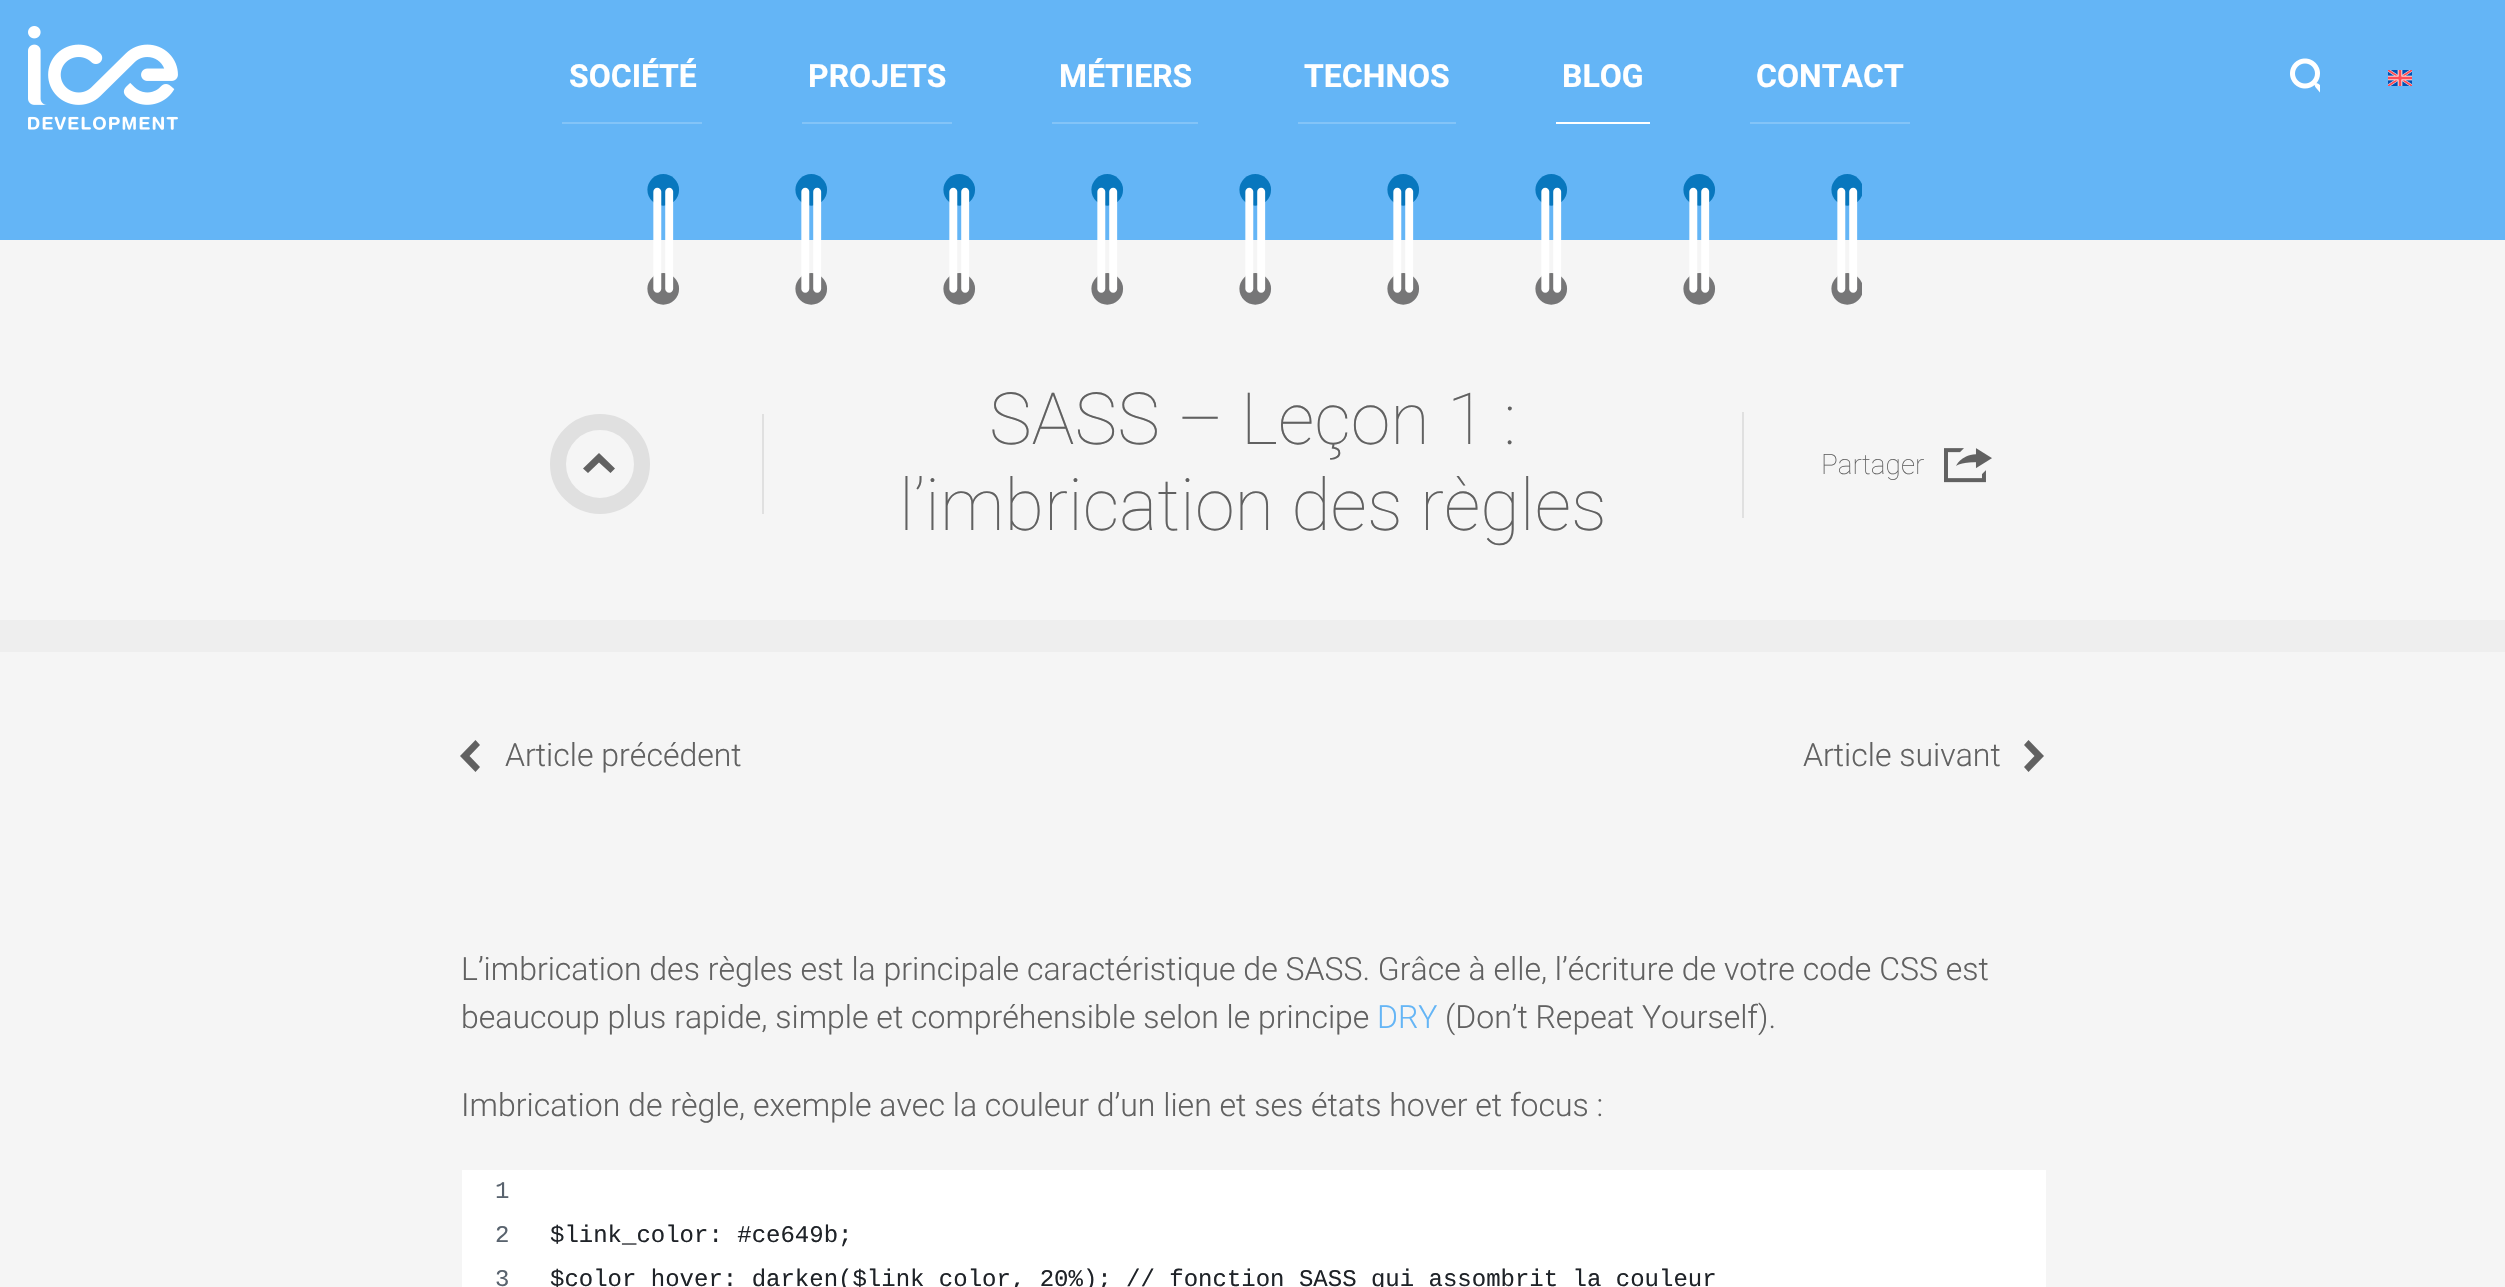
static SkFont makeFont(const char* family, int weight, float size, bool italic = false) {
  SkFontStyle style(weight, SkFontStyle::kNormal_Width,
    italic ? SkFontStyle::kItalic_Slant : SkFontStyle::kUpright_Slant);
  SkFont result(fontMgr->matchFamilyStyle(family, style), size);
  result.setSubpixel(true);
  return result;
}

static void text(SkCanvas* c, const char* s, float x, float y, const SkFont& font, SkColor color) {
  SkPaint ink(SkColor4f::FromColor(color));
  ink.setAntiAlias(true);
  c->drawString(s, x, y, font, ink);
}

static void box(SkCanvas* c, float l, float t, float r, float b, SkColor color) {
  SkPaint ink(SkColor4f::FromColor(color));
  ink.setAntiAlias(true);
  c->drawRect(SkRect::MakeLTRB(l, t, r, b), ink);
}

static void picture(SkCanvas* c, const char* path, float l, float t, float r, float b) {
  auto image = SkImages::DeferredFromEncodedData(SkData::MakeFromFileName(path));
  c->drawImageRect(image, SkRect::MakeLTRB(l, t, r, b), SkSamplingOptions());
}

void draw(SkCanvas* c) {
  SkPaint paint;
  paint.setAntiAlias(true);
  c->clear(0xfff5f5f5);
  box(c, 0, 0, 2505, 240, 0xff64b5f6);
  picture(c, "img_01.png", 28, 26, 178, 130);
  box(c, 562, 122, 702, 124, 0xff83c4f8);
  SkFont face1 = makeFont("Roboto", 700, 32);
  text(c, "SOCIÉTÉ", 569, 87, face1, 0xffffffff);
  box(c, 802, 122, 952, 124, 0xff83c4f8);
  text(c, "PROJETS", 808, 87, face1, 0xffffffff);
  box(c, 1052, 122, 1198, 124, 0xff83c4f8);
  text(c, "MÉTIERS", 1059, 87, face1, 0xffffffff);
  box(c, 1298, 122, 1456, 124, 0xff83c4f8);
  text(c, "TECHNOS", 1304, 87, face1, 0xffffffff);
  box(c, 1556, 122, 1650, 124, 0xffffffff);
  text(c, "BLOG", 1562, 87, face1, 0xffffffff);
  box(c, 1750, 122, 1910, 124, 0xff83c4f8);
  text(c, "CONTACT", 1756, 87, face1, 0xffffffff);
  picture(c, "img_02.png", 2290, 58, 2320, 93);
  picture(c, "img_03.png", 2388, 70, 2412, 86);
  picture(c, "img_04.png", 647, 174, 1862, 305);
  box(c, 762, 414, 764, 514, 0xffe0e0e0);
  paint.setStyle(SkPaint::kStroke_Style);
  paint.setStrokeWidth(16);
  paint.setColor(0xffe0e0e0);
  c->drawCircle(600, 464, 42, paint);
  paint.setStyle(SkPaint::kFill_Style);
  paint.setColor(0xff616161);
  c->drawPath(SkPathBuilder().moveTo(583, 468.5f).lineTo(599, 453).lineTo(615, 468.5f).lineTo(610.5f, 473).lineTo(599, 462.5f).lineTo(588, 473).close().detach(), paint);
  SkFont face2 = makeFont("Roboto", 100, 72);
  text(c, "SASS – Leçon 1 :", 989, 444, face2, 0xff616161);
  text(c, "l’imbrication des règles", 899, 530, face2, 0xff616161);
  box(c, 1742, 412, 1744, 518, 0xffe0e0e0);
  SkFont face3 = makeFont("Roboto", 100, 28);
  text(c, "Partager", 1821, 474, face3, 0xff616161);
  picture(c, "img_05.png", 1944, 448, 1992, 483);
  box(c, 0, 620, 2505, 652, 0xffeeeeee);
  c->drawPath(SkPathBuilder().moveTo(475.5f, 772).lineTo(460, 756).lineTo(475.5f, 740).lineTo(480, 745).lineTo(469.5f, 756).lineTo(480, 767).close().detach(), paint);
  SkFont face4 = makeFont("Roboto", 300, 32);
  text(c, "Article précédent", 505, 766, face4, 0xff616161);
  text(c, "Article suivant", 1803, 766, face4, 0xff616161);
  c->drawPath(SkPathBuilder().moveTo(2028.5f, 740).lineTo(2044, 756).lineTo(2028.5f, 772).lineTo(2024, 767).lineTo(2034.5f, 756).lineTo(2024, 745).close().detach(), paint);
  text(c, "L’imbrication des règles est la principale caractéristique de SASS. Grâce à elle, l’écriture de votre code CSS est", 461, 980, face4, 0xff616161);
  text(c, "beaucoup plus rapide, simple et compréhensible selon le principe", 461, 1028, face4, 0xff616161);
  text(c, "DRY", 1377, 1028, face4, 0xff64b5f6);
  text(c, "(Don’t Repeat Yourself).", 1445, 1028, face4, 0xff616161);
  text(c, "Imbrication de règle, exemple avec la couleur d’un lien et ses états hover et focus :", 461, 1116, face4, 0xff616161);
  box(c, 462, 1170, 2046, 1287, 0xffffffff);
  SkFont face5 = makeFont("Liberation Mono", 400, 24);
  text(c, "1", 495, 1198, face5, 0xff59636e);
  text(c, "2", 495, 1242, face5, 0xff59636e);
  text(c, "$link_color: #ce649b;", 550, 1242, face5, 0xff1f2328);
  text(c, "3", 495, 1286, face5, 0xff59636e);
  text(c, "$color_hover: darken($link_color, 20%); // fonction SASS qui assombrit la couleur", 550, 1286, face5, 0xff1f2328);
}
